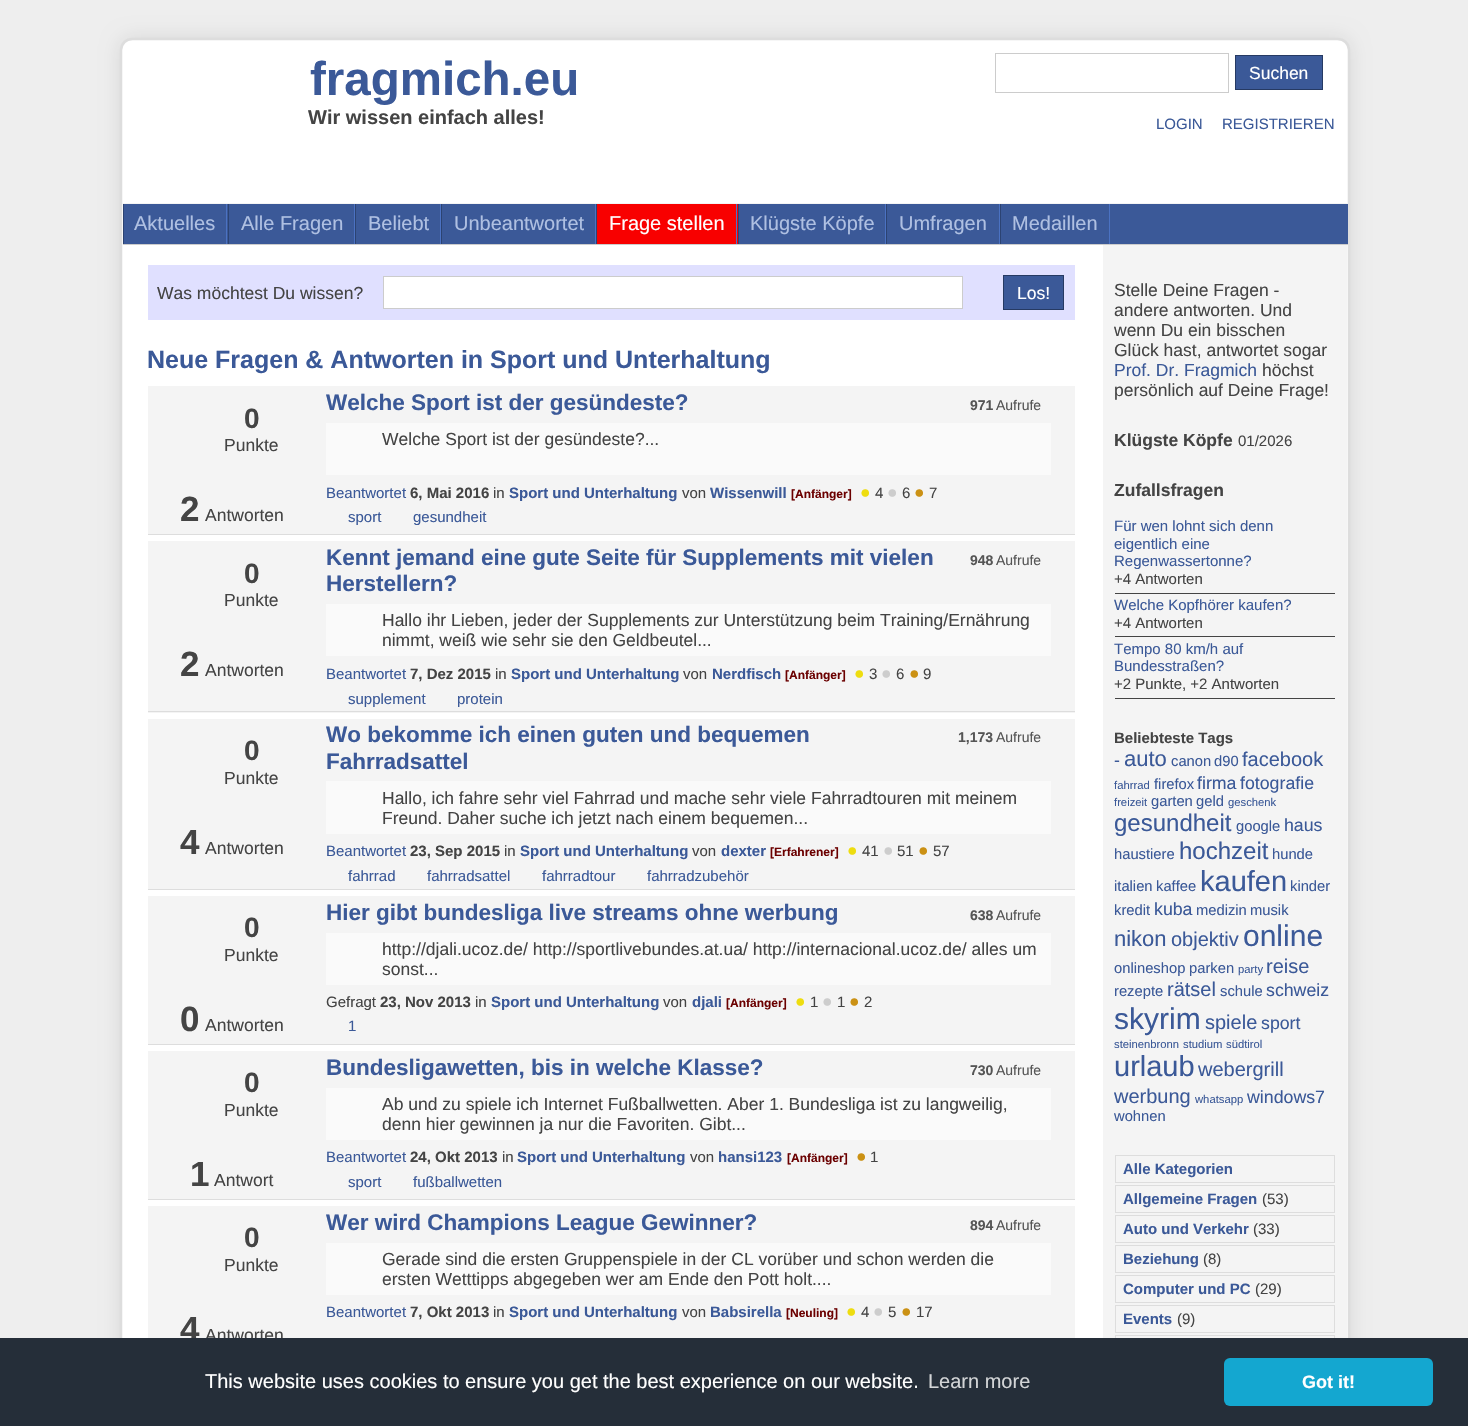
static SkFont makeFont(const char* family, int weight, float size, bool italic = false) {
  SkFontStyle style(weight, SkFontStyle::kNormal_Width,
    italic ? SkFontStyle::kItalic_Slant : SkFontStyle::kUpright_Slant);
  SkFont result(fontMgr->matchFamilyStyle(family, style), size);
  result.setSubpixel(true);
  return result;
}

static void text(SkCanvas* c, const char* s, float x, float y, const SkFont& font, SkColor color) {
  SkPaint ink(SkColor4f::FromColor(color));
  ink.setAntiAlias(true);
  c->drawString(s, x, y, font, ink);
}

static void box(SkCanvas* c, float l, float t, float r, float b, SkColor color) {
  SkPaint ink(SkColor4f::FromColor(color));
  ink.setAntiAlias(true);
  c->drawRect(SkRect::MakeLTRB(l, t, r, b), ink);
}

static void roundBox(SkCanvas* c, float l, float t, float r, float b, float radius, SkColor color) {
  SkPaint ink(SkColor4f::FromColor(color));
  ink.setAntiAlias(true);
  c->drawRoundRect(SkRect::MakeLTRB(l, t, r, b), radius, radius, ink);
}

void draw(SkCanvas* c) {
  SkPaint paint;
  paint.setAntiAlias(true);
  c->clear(0xffeeeeee);
  paint.setColor(0x1a000000);
  paint.setMaskFilter(SkMaskFilter::MakeBlur(kNormal_SkBlurStyle, 9.5f));
  c->drawRoundRect(SkRect::MakeLTRB(120, 38, 1350, 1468), 13, 13, paint);
  paint.setMaskFilter(nullptr);
  roundBox(c, 120, 38, 1350, 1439, 13, 0xffffffff);
  paint.setStyle(SkPaint::kStroke_Style);
  paint.setStrokeWidth(2.5f);
  paint.setColor(0xffdddddd);
  c->drawPath(SkPathBuilder().moveTo(124.5f, 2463).cubicTo(122.5f, 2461, 121, 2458, 121, 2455).lineTo(121, 50).cubicTo(121, 47, 122.5f, 44, 124.5f, 42).cubicTo(126.5f, 40, 129.5f, 39, 132.5f, 39).lineTo(1337.5f, 39).cubicTo(1340.5f, 39, 1343.5f, 40, 1345.5f, 42).cubicTo(1347.5f, 44, 1349, 47, 1349, 50).lineTo(1349, 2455).cubicTo(1349, 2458, 1347.5f, 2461, 1345.5f, 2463).detach(), paint);
  SkFont face1 = makeFont("Liberation Sans", 700, 47.5f);
  text(c, "fragmich.eu", 310, 95, face1, 0xff3b5998);
  SkFont face2 = makeFont("Liberation Sans", 700, 20);
  text(c, "Wir wissen einfach alles!", 308, 124, face2, 0xff444444);
  paint.setStrokeWidth(1);
  paint.setColor(0xffcccccc);
  c->drawRect(SkRect::MakeLTRB(995.5f, 53.5f, 1228.5f, 92.5f), paint);
  paint.setStyle(SkPaint::kFill_Style);
  paint.setColor(0xff3b5998);
  c->drawRect(SkRect::MakeLTRB(1235.5f, 55.5f, 1322.5f, 89.5f), paint);
  paint.setStyle(SkPaint::kStroke_Style);
  paint.setColor(0xff263a63);
  c->drawRect(SkRect::MakeLTRB(1235.5f, 55.5f, 1322.5f, 89.5f), paint);
  SkFont face3 = makeFont("Liberation Sans", 400, 17.5f);
  text(c, "Suchen", 1249, 79, face3, 0xffffffff);
  SkFont face4 = makeFont("Liberation Sans", 400, 15);
  text(c, "LOGIN", 1156, 129, face4, 0xff3b5998);
  text(c, "REGISTRIEREN", 1222, 129, face4, 0xff3b5998);
  box(c, 124, 204, 1348, 244, 0xff3b5998);
  box(c, 123, 203, 1348, 204, 0xfff4f4f4);
  box(c, 123, 244, 1348, 245, 0xffcccccc);
  box(c, 226, 204, 227, 244, 0xff4b72c2);
  box(c, 123, 204, 124, 244, 0xff2c4372);
  SkFont face5 = makeFont("Liberation Sans", 400, 20);
  text(c, "Aktuelles", 134, 230, face5, 0xffafc0e2);
  box(c, 354, 204, 355, 244, 0xff4b72c2);
  box(c, 228, 204, 229, 244, 0xff2c4372);
  text(c, "Alle Fragen", 241, 230, face5, 0xffafc0e2);
  box(c, 440, 204, 441, 244, 0xff4b72c2);
  box(c, 355, 204, 356, 244, 0xff2c4372);
  text(c, "Beliebt", 368, 230, face5, 0xffafc0e2);
  box(c, 595, 204, 596, 244, 0xff4b72c2);
  box(c, 441, 204, 442, 244, 0xff2c4372);
  text(c, "Unbeantwortet", 454, 230, face5, 0xffafc0e2);
  box(c, 597, 204, 738, 244, 0xfff80000);
  box(c, 736, 204, 737, 244, 0xff4b72c2);
  box(c, 596, 204, 597, 244, 0xff2c4372);
  text(c, "Frage stellen", 609, 230, face5, 0xffffffff);
  box(c, 885, 204, 886, 244, 0xff4b72c2);
  box(c, 738, 204, 739, 244, 0xff2c4372);
  text(c, "Klügste Köpfe", 750, 230, face5, 0xffafc0e2);
  box(c, 999, 204, 1000, 244, 0xff4b72c2);
  box(c, 886, 204, 887, 244, 0xff2c4372);
  text(c, "Umfragen", 899, 230, face5, 0xffafc0e2);
  box(c, 1109, 204, 1110, 244, 0xff4b72c2);
  box(c, 1000, 204, 1001, 244, 0xff2c4372);
  text(c, "Medaillen", 1012, 230, face5, 0xffafc0e2);
  box(c, 148, 265, 1075, 320, 0xffe0e0ff);
  text(c, "Was möchtest Du wissen?", 157, 299, face3, 0xff444444);
  paint.setStyle(SkPaint::kFill_Style);
  paint.setColor(0xffffffff);
  c->drawRect(SkRect::MakeLTRB(383.5f, 276.5f, 962.5f, 308.5f), paint);
  paint.setStyle(SkPaint::kStroke_Style);
  paint.setColor(0xffcccccc);
  c->drawRect(SkRect::MakeLTRB(383.5f, 276.5f, 962.5f, 308.5f), paint);
  paint.setStyle(SkPaint::kFill_Style);
  paint.setColor(0xff3b5998);
  c->drawRect(SkRect::MakeLTRB(1003.5f, 275.5f, 1063.5f, 309.5f), paint);
  paint.setStyle(SkPaint::kStroke_Style);
  paint.setColor(0xff263a63);
  c->drawRect(SkRect::MakeLTRB(1003.5f, 275.5f, 1063.5f, 309.5f), paint);
  text(c, "Los!", 1017, 299, face3, 0xffffffff);
  SkFont face6 = makeFont("Liberation Sans", 700, 25);
  text(c, "Neue Fragen & Antworten in Sport und Unterhaltung", 147, 368, face6, 0xff3b5998);
  box(c, 148, 386, 1075, 534, 0xfff4f4f4);
  box(c, 148, 534, 1075, 535, 0xffdddddd);
  SkFont face7 = makeFont("Liberation Sans", 700, 28);
  text(c, "0", 244, 428, face7, 0xff444444);
  text(c, "Punkte", 224, 451, face3, 0xff444444);
  SkFont face8 = makeFont("Liberation Sans", 700, 35);
  text(c, "2", 180, 521, face8, 0xff444444);
  text(c, "Antworten", 205, 521, face3, 0xff444444);
  SkFont face9 = makeFont("Liberation Sans", 700, 22.5f);
  text(c, "Welche Sport ist der gesündeste?", 326, 410, face9, 0xff3b5998);
  SkFont face10 = makeFont("Liberation Sans", 700, 14);
  text(c, "971", 970, 410, face10, 0xff555555);
  SkFont face11 = makeFont("Liberation Sans", 400, 14);
  text(c, "Aufrufe", 996, 410, face11, 0xff555555);
  box(c, 326, 423, 1051, 475, 0xfffafafa);
  text(c, "Welche Sport ist der gesündeste?...", 382, 445, face3, 0xff444444);
  text(c, "Beantwortet", 326, 498, face4, 0xff3b5998);
  SkFont face12 = makeFont("Liberation Sans", 700, 15);
  text(c, "6, Mai 2016", 410, 498, face12, 0xff444444);
  text(c, "in", 493, 498, face4, 0xff444444);
  text(c, "Sport und Unterhaltung", 509, 498, face12, 0xff3b5998);
  text(c, "von", 682, 498, face4, 0xff444444);
  text(c, "Wissenwill", 710, 498, face12, 0xff3b5998);
  SkFont face13 = makeFont("Liberation Sans", 700, 12);
  text(c, "[Anfänger]", 791, 498, face13, 0xff6b0000);
  text(c, "●", 860, 498, face3, 0xffeedd0f);
  text(c, "4", 875, 498, face4, 0xff444444);
  text(c, "●", 887, 498, face3, 0xffcdcdcd);
  text(c, "6", 902, 498, face4, 0xff444444);
  text(c, "●", 914, 498, face3, 0xffcb9114);
  text(c, "7", 929, 498, face4, 0xff444444);
  text(c, "sport", 348, 522, face4, 0xff3b5998);
  text(c, "gesundheit", 413, 522, face4, 0xff3b5998);
  box(c, 148, 541, 1075, 713, 0xfff4f4f4);
  box(c, 148, 711, 1075, 712, 0xffdddddd);
  text(c, "0", 244, 583, face7, 0xff444444);
  text(c, "Punkte", 224, 606, face3, 0xff444444);
  text(c, "2", 180, 676, face8, 0xff444444);
  text(c, "Antworten", 205, 676, face3, 0xff444444);
  text(c, "Kennt jemand eine gute Seite für Supplements mit vielen", 326, 565, face9, 0xff3b5998);
  text(c, "Herstellern?", 326, 591, face9, 0xff3b5998);
  text(c, "948", 970, 565, face10, 0xff555555);
  text(c, "Aufrufe", 996, 565, face11, 0xff555555);
  box(c, 326, 604, 1051, 656, 0xfffafafa);
  text(c, "Hallo ihr Lieben, jeder der Supplements zur Unterstützung beim Training/Ernährung", 382, 626, face3, 0xff444444);
  text(c, "nimmt, weiß wie sehr sie den Geldbeutel...", 382, 646, face3, 0xff444444);
  text(c, "Beantwortet", 326, 679, face4, 0xff3b5998);
  text(c, "7, Dez 2015", 410, 679, face12, 0xff444444);
  text(c, "in", 495, 679, face4, 0xff444444);
  text(c, "Sport und Unterhaltung", 511, 679, face12, 0xff3b5998);
  text(c, "von", 683, 679, face4, 0xff444444);
  text(c, "Nerdfisch", 712, 679, face12, 0xff3b5998);
  text(c, "[Anfänger]", 785, 679, face13, 0xff6b0000);
  text(c, "●", 854, 679, face3, 0xffeedd0f);
  text(c, "3", 869, 679, face4, 0xff444444);
  text(c, "●", 881, 679, face3, 0xffcdcdcd);
  text(c, "6", 896, 679, face4, 0xff444444);
  text(c, "●", 909, 679, face3, 0xffcb9114);
  text(c, "9", 923, 679, face4, 0xff444444);
  text(c, "supplement", 348, 704, face4, 0xff3b5998);
  text(c, "protein", 457, 704, face4, 0xff3b5998);
  box(c, 148, 719, 1075, 889, 0xfff4f4f4);
  box(c, 148, 889, 1075, 890, 0xffdddddd);
  text(c, "0", 244, 760, face7, 0xff444444);
  text(c, "Punkte", 224, 784, face3, 0xff444444);
  text(c, "4", 180, 854, face8, 0xff444444);
  text(c, "Antworten", 205, 854, face3, 0xff444444);
  text(c, "Wo bekomme ich einen guten und bequemen", 326, 742, face9, 0xff3b5998);
  text(c, "Fahrradsattel", 326, 769, face9, 0xff3b5998);
  text(c, "1,173", 958, 742, face10, 0xff555555);
  text(c, "Aufrufe", 996, 742, face11, 0xff555555);
  box(c, 326, 781, 1051, 834, 0xfffafafa);
  text(c, "Hallo, ich fahre sehr viel Fahrrad und mache sehr viele Fahrradtouren mit meinem", 382, 804, face3, 0xff444444);
  text(c, "Freund. Daher suche ich jetzt nach einem bequemen...", 382, 824, face3, 0xff444444);
  text(c, "Beantwortet", 326, 856, face4, 0xff3b5998);
  text(c, "23, Sep 2015", 410, 856, face12, 0xff444444);
  text(c, "in", 504, 856, face4, 0xff444444);
  text(c, "Sport und Unterhaltung", 520, 856, face12, 0xff3b5998);
  text(c, "von", 692, 856, face4, 0xff444444);
  text(c, "dexter", 721, 856, face12, 0xff3b5998);
  text(c, "[Erfahrener]", 770, 856, face13, 0xff6b0000);
  text(c, "●", 847, 856, face3, 0xffeedd0f);
  text(c, "41", 862, 856, face4, 0xff444444);
  text(c, "●", 883, 856, face3, 0xffcdcdcd);
  text(c, "51", 897, 856, face4, 0xff444444);
  text(c, "●", 918, 856, face3, 0xffcb9114);
  text(c, "57", 933, 856, face4, 0xff444444);
  text(c, "fahrrad", 348, 881, face4, 0xff3b5998);
  text(c, "fahrradsattel", 427, 881, face4, 0xff3b5998);
  text(c, "fahrradtour", 542, 881, face4, 0xff3b5998);
  text(c, "fahrradzubehör", 647, 881, face4, 0xff3b5998);
  box(c, 148, 896, 1075, 1044, 0xfff4f4f4);
  box(c, 148, 1044, 1075, 1045, 0xffdddddd);
  text(c, "0", 244, 937, face7, 0xff444444);
  text(c, "Punkte", 224, 961, face3, 0xff444444);
  text(c, "0", 180, 1031, face8, 0xff444444);
  text(c, "Antworten", 205, 1031, face3, 0xff444444);
  text(c, "Hier gibt bundesliga live streams ohne werbung", 326, 920, face9, 0xff3b5998);
  text(c, "638", 970, 920, face10, 0xff555555);
  text(c, "Aufrufe", 996, 920, face11, 0xff555555);
  box(c, 326, 933, 1051, 985, 0xfffafafa);
  text(c, "http://djali.ucoz.de/ http://sportlivebundes.at.ua/ http://internacional.ucoz.de/ alles um", 382, 955, face3, 0xff444444);
  text(c, "sonst...", 382, 975, face3, 0xff444444);
  text(c, "Gefragt", 326, 1007, face4, 0xff444444);
  text(c, "23, Nov 2013", 380, 1007, face12, 0xff444444);
  text(c, "in", 475, 1007, face4, 0xff444444);
  text(c, "Sport und Unterhaltung", 491, 1007, face12, 0xff3b5998);
  text(c, "von", 663, 1007, face4, 0xff444444);
  text(c, "djali", 692, 1007, face12, 0xff3b5998);
  text(c, "[Anfänger]", 726, 1007, face13, 0xff6b0000);
  text(c, "●", 795, 1007, face3, 0xffeedd0f);
  text(c, "1", 810, 1007, face4, 0xff444444);
  text(c, "●", 822, 1007, face3, 0xffcdcdcd);
  text(c, "1", 837, 1007, face4, 0xff444444);
  text(c, "●", 849, 1007, face3, 0xffcb9114);
  text(c, "2", 864, 1007, face4, 0xff444444);
  text(c, "1", 348, 1031, face4, 0xff3b5998);
  box(c, 148, 1051, 1075, 1199, 0xfff4f4f4);
  box(c, 148, 1199, 1075, 1200, 0xffdddddd);
  text(c, "0", 244, 1092, face7, 0xff444444);
  text(c, "Punkte", 224, 1116, face3, 0xff444444);
  text(c, "1", 190, 1186, face8, 0xff444444);
  text(c, "Antwort", 214, 1186, face3, 0xff444444);
  text(c, "Bundesligawetten, bis in welche Klasse?", 326, 1075, face9, 0xff3b5998);
  text(c, "730", 970, 1075, face10, 0xff555555);
  text(c, "Aufrufe", 996, 1075, face11, 0xff555555);
  box(c, 326, 1088, 1051, 1140, 0xfffafafa);
  text(c, "Ab und zu spiele ich Internet Fußballwetten. Aber 1. Bundesliga ist zu langweilig,", 382, 1110, face3, 0xff444444);
  text(c, "denn hier gewinnen ja nur die Favoriten. Gibt...", 382, 1130, face3, 0xff444444);
  text(c, "Beantwortet", 326, 1162, face4, 0xff3b5998);
  text(c, "24, Okt 2013", 410, 1162, face12, 0xff444444);
  text(c, "in", 502, 1162, face4, 0xff444444);
  text(c, "Sport und Unterhaltung", 517, 1162, face12, 0xff3b5998);
  text(c, "von", 690, 1162, face4, 0xff444444);
  text(c, "hansi123", 718, 1162, face12, 0xff3b5998);
  text(c, "[Anfänger]", 787, 1162, face13, 0xff6b0000);
  text(c, "●", 856, 1162, face3, 0xffcb9114);
  text(c, "1", 870, 1162, face4, 0xff444444);
  text(c, "sport", 348, 1187, face4, 0xff3b5998);
  text(c, "fußballwetten", 413, 1187, face4, 0xff3b5998);
  box(c, 148, 1206, 1075, 1338, 0xfff4f4f4);
  text(c, "0", 244, 1247, face7, 0xff444444);
  text(c, "Punkte", 224, 1271, face3, 0xff444444);
  text(c, "4", 180, 1341, face8, 0xff444444);
  text(c, "Antworten", 205, 1341, face3, 0xff444444);
  text(c, "Wer wird Champions League Gewinner?", 326, 1230, face9, 0xff3b5998);
  text(c, "894", 970, 1230, face10, 0xff555555);
  text(c, "Aufrufe", 996, 1230, face11, 0xff555555);
  box(c, 326, 1243, 1051, 1295, 0xfffafafa);
  text(c, "Gerade sind die ersten Gruppenspiele in der CL vorüber und schon werden die", 382, 1265, face3, 0xff444444);
  text(c, "ersten Wetttipps abgegeben wer am Ende den Pott holt....", 382, 1285, face3, 0xff444444);
  text(c, "Beantwortet", 326, 1317, face4, 0xff3b5998);
  text(c, "7, Okt 2013", 410, 1317, face12, 0xff444444);
  text(c, "in", 493, 1317, face4, 0xff444444);
  text(c, "Sport und Unterhaltung", 509, 1317, face12, 0xff3b5998);
  text(c, "von", 682, 1317, face4, 0xff444444);
  text(c, "Babsirella", 710, 1317, face12, 0xff3b5998);
  text(c, "[Neuling]", 786, 1317, face13, 0xff6b0000);
  text(c, "●", 846, 1317, face3, 0xffeedd0f);
  text(c, "4", 861, 1317, face4, 0xff444444);
  text(c, "●", 873, 1317, face3, 0xffcdcdcd);
  text(c, "5", 888, 1317, face4, 0xff444444);
  text(c, "●", 901, 1317, face3, 0xffcb9114);
  text(c, "17", 916, 1317, face4, 0xff444444);
  box(c, 1103, 245, 1347, 1338, 0xfff4f4f4);
  text(c, "Stelle Deine Fragen -", 1114, 296, face3, 0xff444444);
  text(c, "andere antworten. Und", 1114, 316, face3, 0xff444444);
  text(c, "wenn Du ein bisschen", 1114, 336, face3, 0xff444444);
  text(c, "Glück hast, antwortet sogar", 1114, 356, face3, 0xff444444);
  text(c, "Prof. Dr. Fragmich", 1114, 376, face3, 0xff3b5998);
  text(c, "höchst", 1262, 376, face3, 0xff444444);
  text(c, "persönlich auf Deine Frage!", 1114, 396, face3, 0xff444444);
  SkFont face14 = makeFont("Liberation Sans", 700, 17.5f);
  text(c, "Klügste Köpfe", 1114, 446, face14, 0xff444444);
  text(c, "01/2026", 1238, 446, face4, 0xff444444);
  text(c, "Zufallsfragen", 1114, 496, face14, 0xff444444);
  text(c, "Für wen lohnt sich denn", 1114, 531, face4, 0xff3b5998);
  text(c, "eigentlich eine", 1114, 549, face4, 0xff3b5998);
  text(c, "Regenwassertonne?", 1114, 566, face4, 0xff3b5998);
  box(c, 1115, 593, 1335, 594, 0xff444444);
  text(c, "+4 Antworten", 1114, 584, face4, 0xff444444);
  text(c, "Welche Kopfhörer kaufen?", 1114, 610, face4, 0xff3b5998);
  box(c, 1115, 636, 1335, 637, 0xff444444);
  text(c, "+4 Antworten", 1114, 628, face4, 0xff444444);
  text(c, "Tempo 80 km/h auf", 1114, 654, face4, 0xff3b5998);
  text(c, "Bundesstraßen?", 1114, 671, face4, 0xff3b5998);
  box(c, 1115, 698, 1335, 699, 0xff444444);
  text(c, "+2 Punkte, +2 Antworten", 1114, 689, face4, 0xff444444);
  text(c, "Beliebteste Tags", 1114, 743, face12, 0xff444444);
  SkFont face15 = makeFont("Liberation Sans", 400, 17.75f);
  text(c, "-", 1114, 766, face15, 0xff3b5998);
  SkFont face16 = makeFont("Liberation Sans", 400, 22);
  text(c, "auto", 1124, 766, face16, 0xff3b5998);
  SkFont face17 = makeFont("Liberation Sans", 400, 14.75f);
  text(c, "canon", 1171, 766, face17, 0xff3b5998);
  text(c, "d90", 1214, 766, face17, 0xff3b5998);
  text(c, "facebook", 1242, 766, face5, 0xff3b5998);
  SkFont face18 = makeFont("Liberation Sans", 400, 11.25f);
  text(c, "fahrrad", 1114, 789, face18, 0xff3b5998);
  text(c, "firefox", 1154, 789, face17, 0xff3b5998);
  text(c, "firma", 1197, 789, face15, 0xff3b5998);
  text(c, "fotografie", 1240, 789, face15, 0xff3b5998);
  text(c, "freizeit", 1114, 806, face18, 0xff3b5998);
  text(c, "garten", 1151, 806, face17, 0xff3b5998);
  text(c, "geld", 1196, 806, face17, 0xff3b5998);
  text(c, "geschenk", 1228, 806, face18, 0xff3b5998);
  SkFont face19 = makeFont("Liberation Sans", 400, 24);
  text(c, "gesundheit", 1114, 831, face19, 0xff3b5998);
  text(c, "google", 1236, 831, face17, 0xff3b5998);
  text(c, "haus", 1284, 831, face15, 0xff3b5998);
  text(c, "haustiere", 1114, 859, face17, 0xff3b5998);
  text(c, "hochzeit", 1179, 859, face19, 0xff3b5998);
  text(c, "hunde", 1272, 859, face17, 0xff3b5998);
  text(c, "italien", 1114, 891, face17, 0xff3b5998);
  text(c, "kaffee", 1156, 891, face17, 0xff3b5998);
  SkFont face20 = makeFont("Liberation Sans", 400, 29);
  text(c, "kaufen", 1200, 891, face20, 0xff3b5998);
  text(c, "kinder", 1290, 891, face17, 0xff3b5998);
  text(c, "kredit", 1114, 915, face17, 0xff3b5998);
  text(c, "kuba", 1154, 915, face15, 0xff3b5998);
  text(c, "medizin", 1196, 915, face17, 0xff3b5998);
  text(c, "musik", 1250, 915, face17, 0xff3b5998);
  text(c, "nikon", 1114, 946, face16, 0xff3b5998);
  text(c, "objektiv", 1171, 946, face5, 0xff3b5998);
  SkFont face21 = makeFont("Liberation Sans", 400, 30);
  text(c, "online", 1243, 946, face21, 0xff3b5998);
  text(c, "onlineshop", 1114, 973, face17, 0xff3b5998);
  text(c, "parken", 1189, 973, face17, 0xff3b5998);
  text(c, "party", 1238, 973, face18, 0xff3b5998);
  text(c, "reise", 1266, 973, face5, 0xff3b5998);
  text(c, "rezepte", 1114, 996, face17, 0xff3b5998);
  text(c, "rätsel", 1167, 996, face5, 0xff3b5998);
  text(c, "schule", 1220, 996, face17, 0xff3b5998);
  text(c, "schweiz", 1266, 996, face15, 0xff3b5998);
  text(c, "skyrim", 1114, 1029, face21, 0xff3b5998);
  text(c, "spiele", 1205, 1029, face5, 0xff3b5998);
  text(c, "sport", 1261, 1029, face15, 0xff3b5998);
  text(c, "steinenbronn", 1114, 1048, face18, 0xff3b5998);
  text(c, "studium", 1183, 1048, face18, 0xff3b5998);
  text(c, "südtirol", 1226, 1048, face18, 0xff3b5998);
  text(c, "urlaub", 1114, 1076, face20, 0xff3b5998);
  text(c, "webergrill", 1198, 1076, face5, 0xff3b5998);
  text(c, "werbung", 1114, 1103, face5, 0xff3b5998);
  text(c, "whatsapp", 1195, 1103, face18, 0xff3b5998);
  text(c, "windows7", 1247, 1103, face15, 0xff3b5998);
  text(c, "wohnen", 1114, 1121, face17, 0xff3b5998);
  paint.setColor(0xffdddddd);
  c->drawRect(SkRect::MakeLTRB(1115.5f, 1155.5f, 1334.5f, 1182.5f), paint);
  text(c, "Alle Kategorien", 1123, 1174, face12, 0xff3b5998);
  c->drawRect(SkRect::MakeLTRB(1115.5f, 1185.5f, 1334.5f, 1212.5f), paint);
  text(c, "Allgemeine Fragen", 1123, 1204, face12, 0xff3b5998);
  text(c, "(53)", 1262, 1204, face4, 0xff444444);
  c->drawRect(SkRect::MakeLTRB(1115.5f, 1215.5f, 1334.5f, 1242.5f), paint);
  text(c, "Auto und Verkehr", 1123, 1234, face12, 0xff3b5998);
  text(c, "(33)", 1253, 1234, face4, 0xff444444);
  c->drawRect(SkRect::MakeLTRB(1115.5f, 1245.5f, 1334.5f, 1272.5f), paint);
  text(c, "Beziehung", 1123, 1264, face12, 0xff3b5998);
  text(c, "(8)", 1203, 1264, face4, 0xff444444);
  c->drawRect(SkRect::MakeLTRB(1115.5f, 1275.5f, 1334.5f, 1302.5f), paint);
  text(c, "Computer und PC", 1123, 1294, face12, 0xff3b5998);
  text(c, "(29)", 1255, 1294, face4, 0xff444444);
  c->drawRect(SkRect::MakeLTRB(1115.5f, 1305.5f, 1334.5f, 1332.5f), paint);
  text(c, "Events", 1123, 1324, face12, 0xff3b5998);
  text(c, "(9)", 1177, 1324, face4, 0xff444444);
  c->drawRect(SkRect::MakeLTRB(1115.5f, 1335.5f, 1334.5f, 1362.5f), paint);
  box(c, 0, 1338, 1468, 1426, 0xff252e39);
  text(c, "This website uses cookies to ensure you get the best experience on our website.", 205, 1388, face5, 0xffffffff);
  text(c, "Learn more", 928, 1388, face5, 0xffd3d5d7);
  roundBox(c, 1224, 1358, 1433, 1406, 6, 0xff14a7d0);
  SkFont face22 = makeFont("Liberation Sans", 700, 18);
  text(c, "Got it!", 1302, 1388, face22, 0xffffffff);
}
